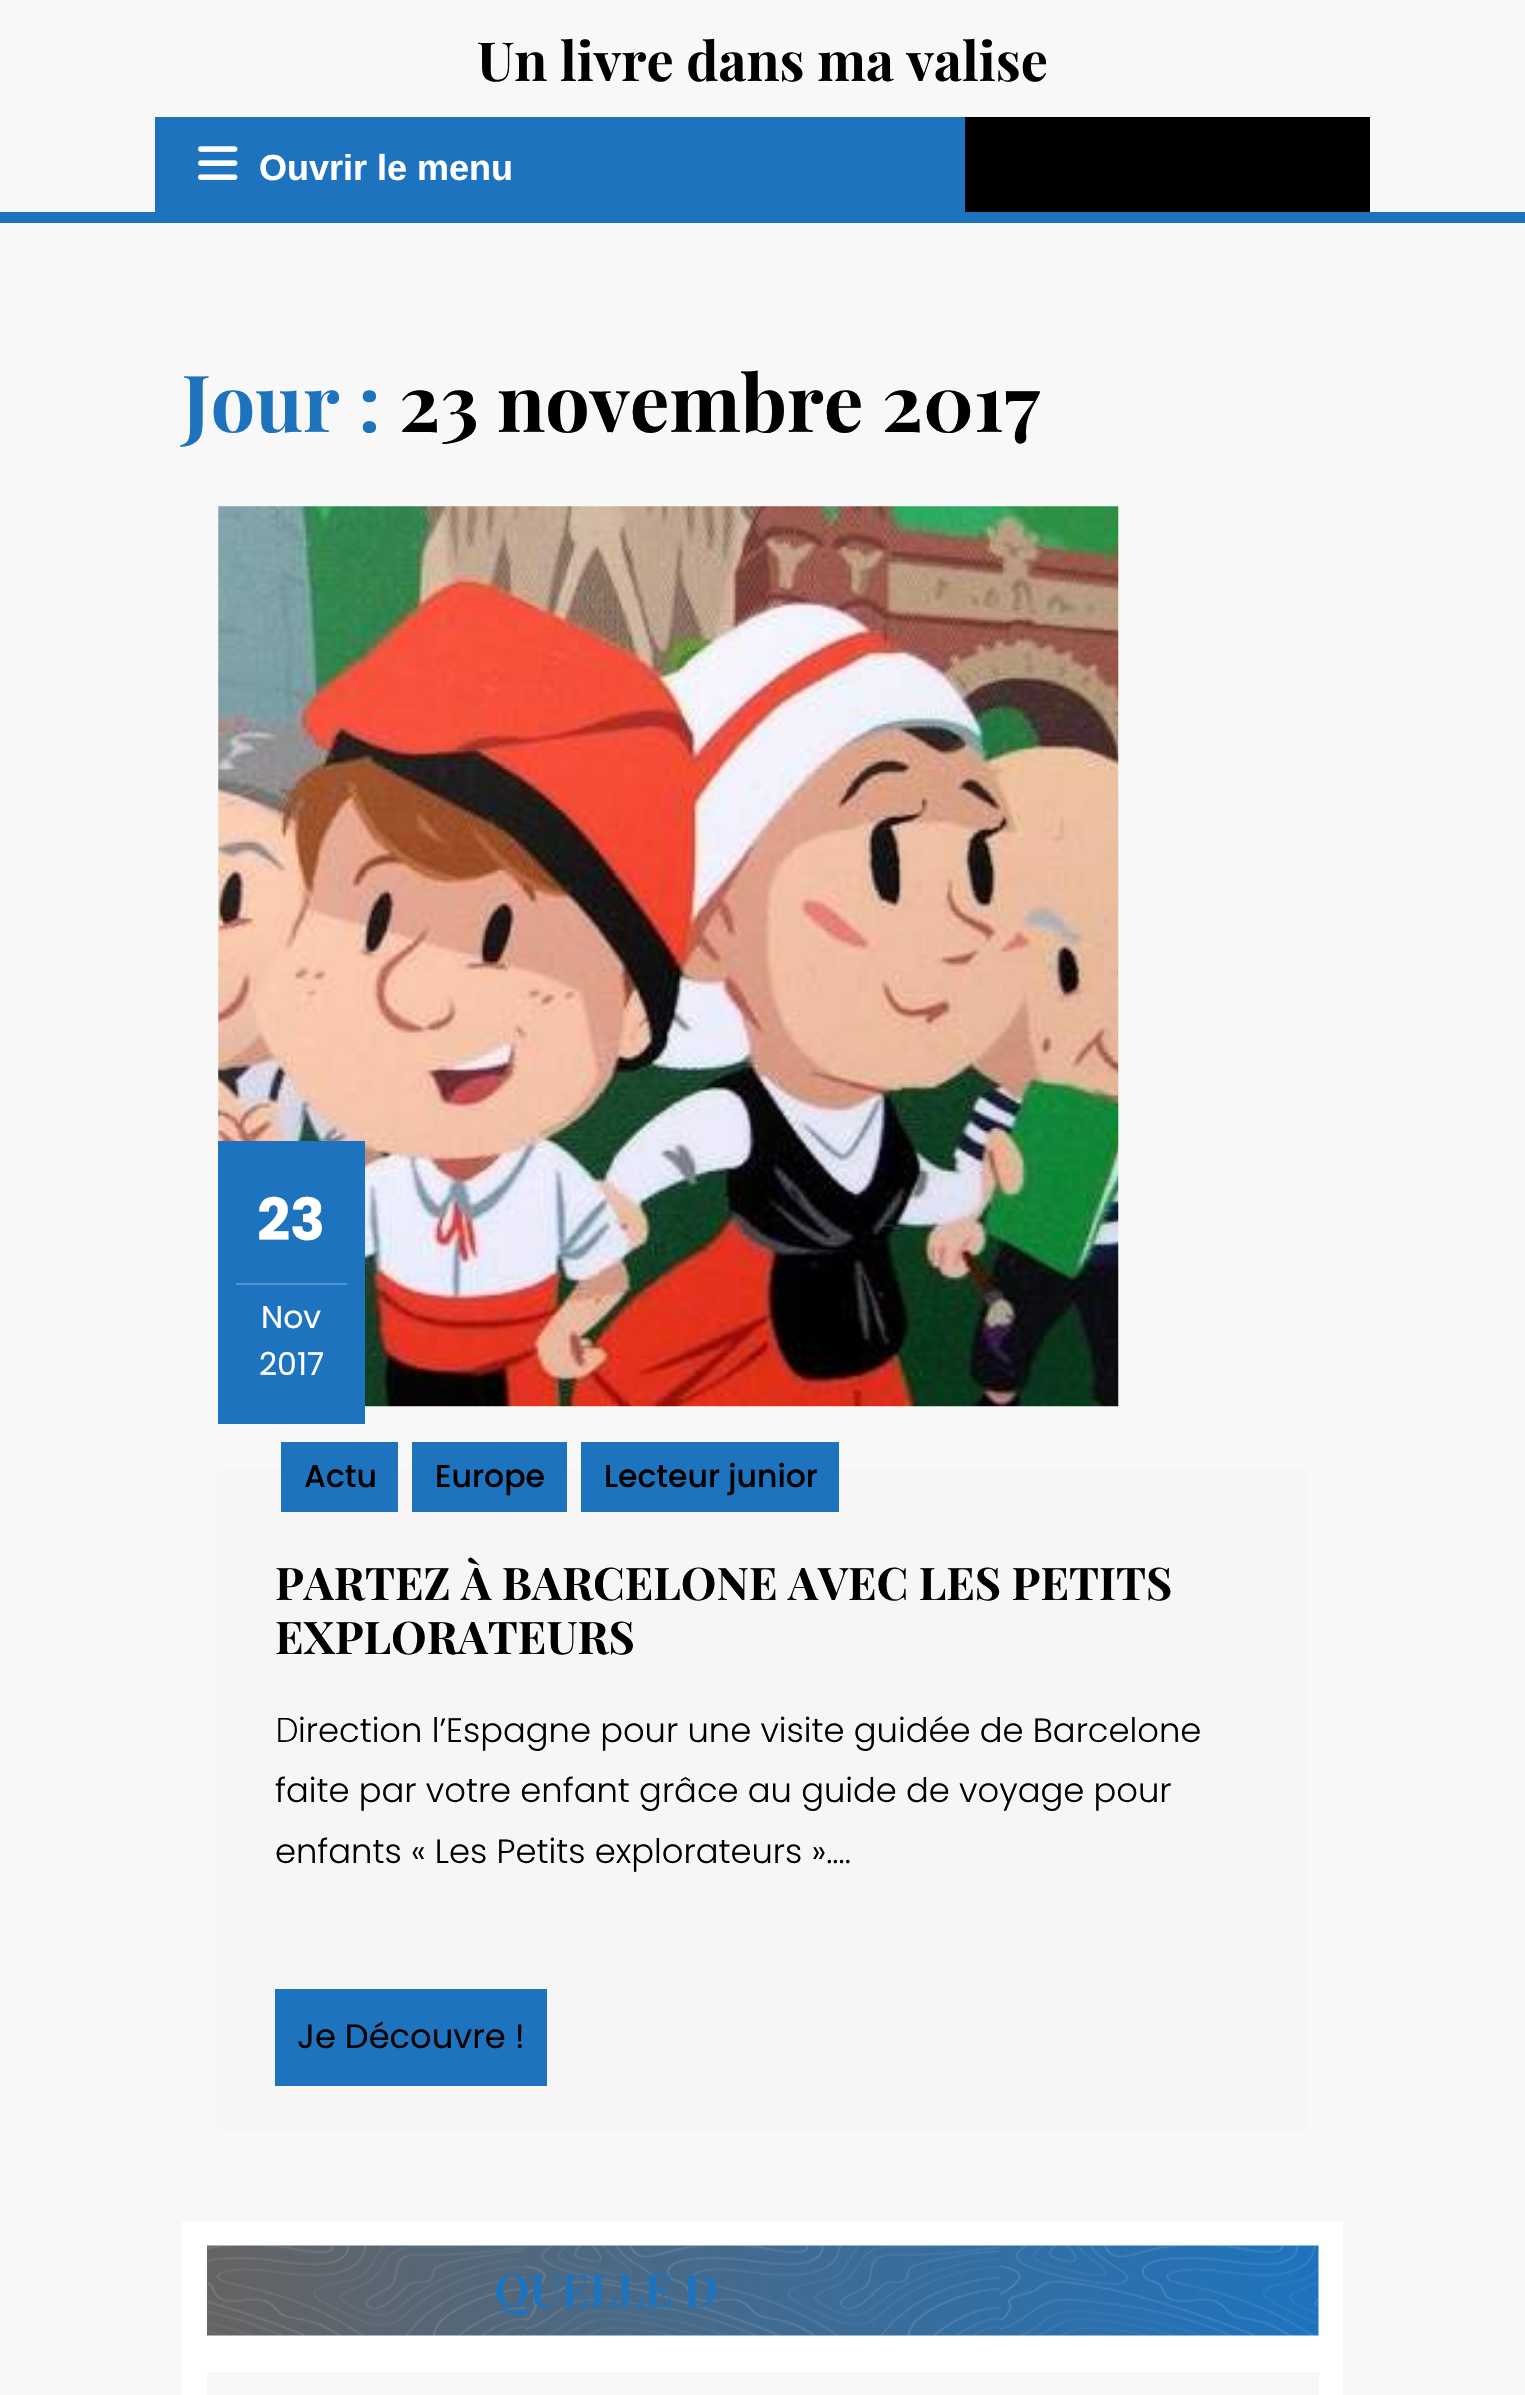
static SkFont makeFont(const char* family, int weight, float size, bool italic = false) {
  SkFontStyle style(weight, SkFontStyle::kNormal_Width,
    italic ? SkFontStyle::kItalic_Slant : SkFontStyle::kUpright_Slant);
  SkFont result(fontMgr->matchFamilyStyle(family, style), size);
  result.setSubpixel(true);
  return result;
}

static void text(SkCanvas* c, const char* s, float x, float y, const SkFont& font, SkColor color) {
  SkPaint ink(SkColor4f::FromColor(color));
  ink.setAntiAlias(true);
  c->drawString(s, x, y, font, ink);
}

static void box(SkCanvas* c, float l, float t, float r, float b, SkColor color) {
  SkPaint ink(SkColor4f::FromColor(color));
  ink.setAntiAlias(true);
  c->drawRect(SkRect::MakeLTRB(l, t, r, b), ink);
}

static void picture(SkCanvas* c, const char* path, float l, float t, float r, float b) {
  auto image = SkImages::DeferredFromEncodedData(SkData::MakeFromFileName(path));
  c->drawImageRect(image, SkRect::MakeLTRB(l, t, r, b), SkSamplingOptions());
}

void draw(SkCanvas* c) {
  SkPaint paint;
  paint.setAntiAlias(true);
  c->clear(0xfff8f8f8);
  box(c, 0, 212, 1525, 223, 0xff1e73be);
  SkFont face1 = makeFont("Playfair Display", 700, 54);
  text(c, "Un livre dans ma valise", 477, 81, face1, 0xff000000);
  box(c, 155, 117, 965, 212, 0xff1e73be);
  picture(c, "img_01.png", 198, 146, 238, 180);
  SkFont face2 = makeFont("Liberation Sans", 700, 36);
  text(c, "Ouvrir le menu", 259, 180, face2, 0xffffffff);
  box(c, 965, 117, 1370, 212, 0xff000000);
  SkFont face3 = makeFont("Playfair Display", 700, 78.75f);
  text(c, "Jour :", 182, 432, face3, 0xff1e73be);
  text(c, "23 novembre 2017", 399, 432, face3, 0xff000000);
  picture(c, "img_02.png", 218, 506, 1119, 1407);
  box(c, 218, 1141, 365, 1424, 0xff1e73be);
  SkFont face4 = makeFont("Poppins", 700, 58);
  text(c, "23", 257, 1240, face4, 0xffffffff);
  box(c, 236, 1283, 347, 1285, 0xff5696ce);
  SkFont face5 = makeFont("Poppins", 400, 31.5f);
  text(c, "Nov", 261, 1328, face5, 0xffffffff);
  text(c, "2017", 259, 1375, face5, 0xffffffff);
  box(c, 218, 1469, 1307, 2131, 0xfff7f5f5);
  box(c, 281, 1442, 398, 1512, 0xff1e73be);
  SkFont face6 = makeFont("Poppins", 500, 31.5f);
  text(c, "Actu", 304, 1487, face6, 0xff000000);
  box(c, 412, 1442, 567, 1512, 0xff1e73be);
  text(c, "Europe", 435, 1487, face6, 0xff000000);
  box(c, 581, 1442, 839, 1512, 0xff1e73be);
  text(c, "Lecteur junior", 604, 1487, face6, 0xff000000);
  SkFont face7 = makeFont("Playfair Display", 700, 45);
  text(c, "PARTEZ À BARCELONE AVEC LES PETITS", 275, 1600, face7, 0xff000000);
  text(c, "EXPLORATEURS", 275, 1654, face7, 0xff000000);
  SkFont face8 = makeFont("Noto Sans", 300, 33.75f);
  text(c, "D", 275, 1742, face8, 0xff000000);
  SkFont face9 = makeFont("Poppins", 300, 33.75f);
  text(c, "irection l’Espagne pour une visite guidée de Barcelone", 298, 1742, face9, 0xff000000);
  text(c, "faite par votre enfant grâce au guide de voyage pour", 275, 1802, face9, 0xff000000);
  text(c, "enfants « Les Petits explorateurs »....", 275, 1863, face9, 0xff000000);
  box(c, 275, 1989, 547, 2086, 0xff1e73be);
  SkFont face10 = makeFont("Poppins", 400, 33.75f);
  text(c, "Je Découvre !", 297, 2048, face10, 0xff000000);
  box(c, 182, 2221, 1343, 2395, 0xffffffff);
  picture(c, "img_03.png", 207, 2245, 1319, 2336);
  text(c, "QUELLE D", 494, 2307, face7, 0xff1e73be);
  box(c, 207, 2372, 1319, 2395, 0xfff8f8f8);
}
